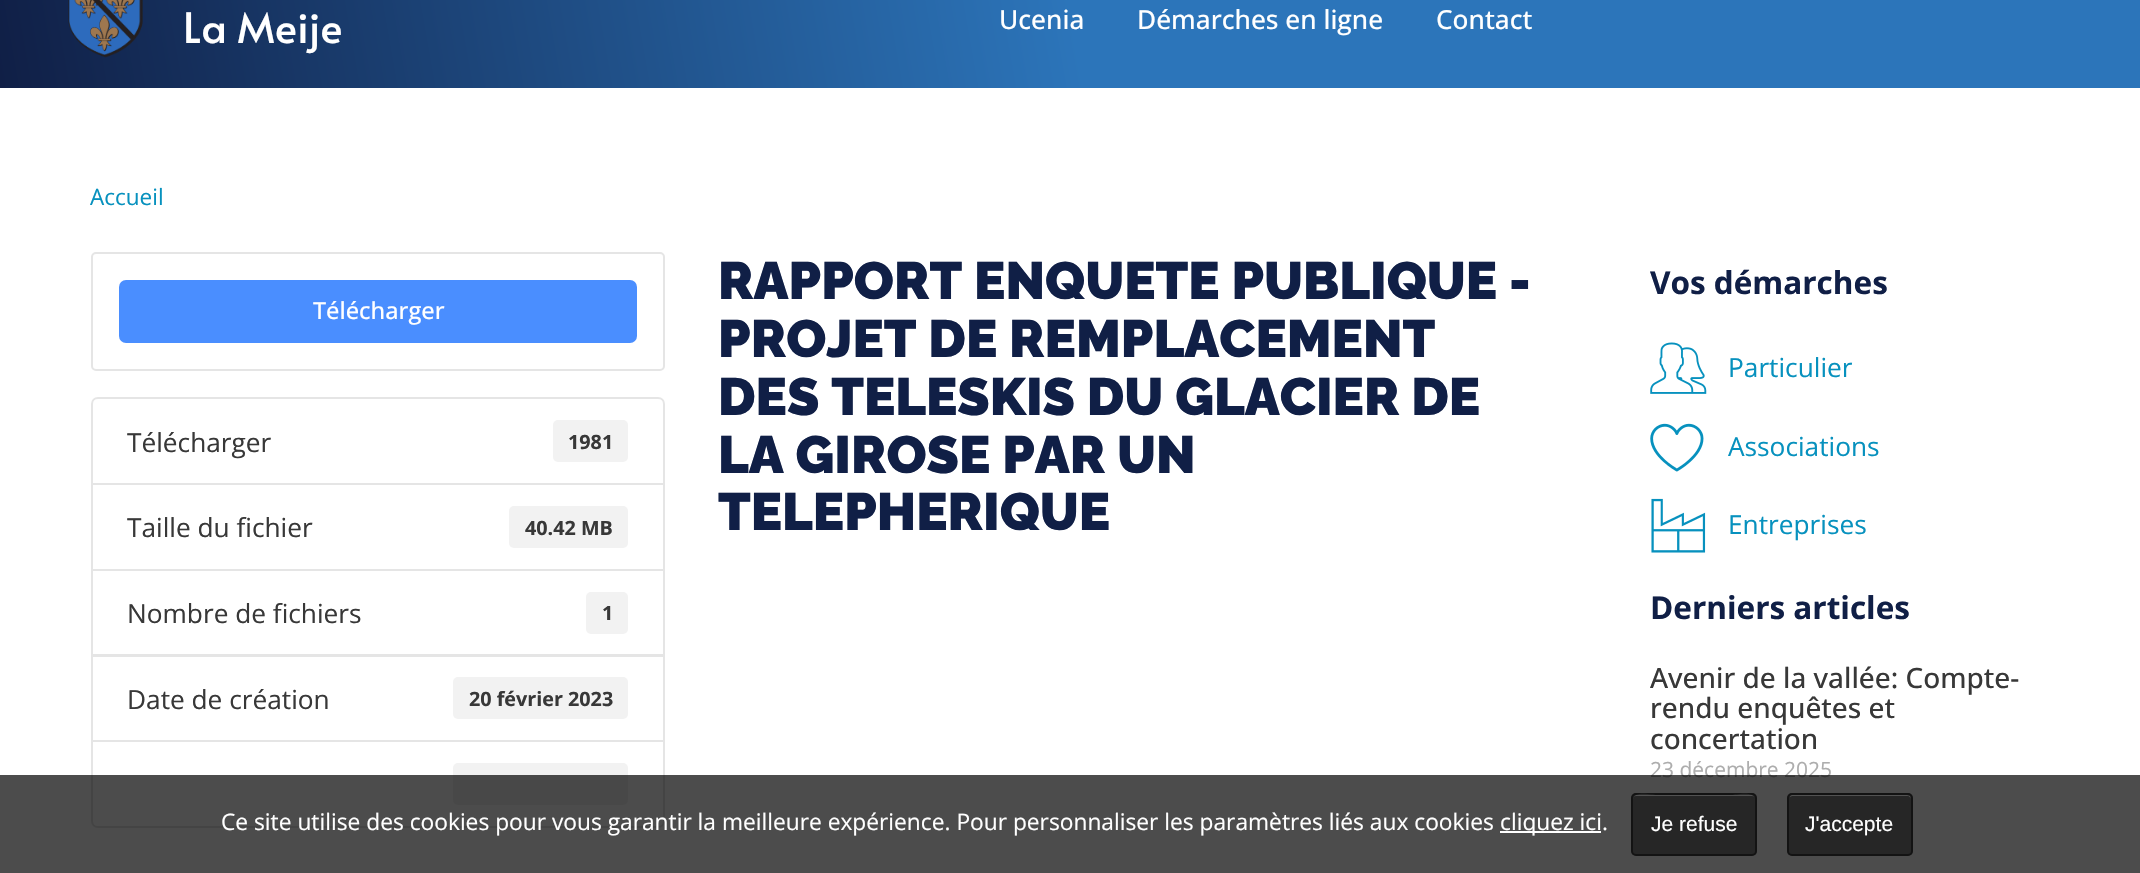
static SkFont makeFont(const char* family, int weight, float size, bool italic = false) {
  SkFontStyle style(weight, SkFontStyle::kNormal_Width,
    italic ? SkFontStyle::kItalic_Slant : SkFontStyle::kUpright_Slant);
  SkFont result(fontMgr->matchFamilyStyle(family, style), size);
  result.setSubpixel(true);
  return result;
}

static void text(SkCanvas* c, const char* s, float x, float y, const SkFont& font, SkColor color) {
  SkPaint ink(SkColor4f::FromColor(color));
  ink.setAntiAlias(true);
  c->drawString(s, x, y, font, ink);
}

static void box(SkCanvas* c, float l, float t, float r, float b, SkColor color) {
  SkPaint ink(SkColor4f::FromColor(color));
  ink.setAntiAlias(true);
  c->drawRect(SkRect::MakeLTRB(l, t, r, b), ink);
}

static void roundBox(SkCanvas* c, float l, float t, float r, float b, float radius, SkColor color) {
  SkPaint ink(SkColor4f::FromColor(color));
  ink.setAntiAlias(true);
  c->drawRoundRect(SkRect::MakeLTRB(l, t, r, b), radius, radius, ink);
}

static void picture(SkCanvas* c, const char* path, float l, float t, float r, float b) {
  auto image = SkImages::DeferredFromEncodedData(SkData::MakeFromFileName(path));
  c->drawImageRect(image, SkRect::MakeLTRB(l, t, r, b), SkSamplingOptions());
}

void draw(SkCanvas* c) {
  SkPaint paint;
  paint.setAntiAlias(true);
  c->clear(0xffffffff);
  {
    const SkColor colors[] = {0xff2c75ba, 0xff101f46};
    const float stops[] = {0.5f, 1};
    const SkPoint ends[] = {{2123, -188}, {17, 183}};
    paint.setShader(SkGradientShader::MakeLinear(ends, colors, stops, 2, SkTileMode::kClamp));
    paint.setAlpha(255);
  }
  c->drawRect(SkRect::MakeLTRB(0, 0, 2140, 88), paint);
  picture(c, "img_01.png", 68, 0, 143, 58);
  SkFont face1 = makeFont("Alata", 400, 42);
  text(c, "La Meije", 183, 43, face1, 0xffffffff);
  SkFont face2 = makeFont("Open Sans", 500, 26.25f);
  text(c, "Ucenia", 999, 29, face2, 0xffffffff);
  text(c, "Démarches en ligne", 1137, 29, face2, 0xffffffff);
  text(c, "Contact", 1436, 29, face2, 0xffffffff);
  SkFont face3 = makeFont("Open Sans", 400, 22.5f);
  text(c, "Accueil", 90, 205, face3, 0xff0791be);
  paint.setStyle(SkPaint::kStroke_Style);
  paint.setStrokeWidth(2);
  paint.setShader(nullptr);
  paint.setColor(0xffe5e5e5);
  c->drawRoundRect(SkRect::MakeLTRB(92, 253, 664, 370), 4, 4, paint);
  roundBox(c, 119, 280, 637, 343, 7, 0xff4a8eff);
  SkFont face4 = makeFont("Open Sans", 500, 23.5f);
  text(c, "Télécharger", 313, 319, face4, 0xffffffff);
  c->drawPath(SkPathBuilder().moveTo(98, 398).lineTo(658, 398).cubicTo(661.5f, 398, 664, 400.5f, 664, 404).lineTo(664, 484).lineTo(92, 484).lineTo(92, 404).cubicTo(92, 400.5f, 94.5f, 398, 98, 398).close().detach(), paint);
  SkFont face5 = makeFont("Open Sans", 400, 26.25f);
  text(c, "Télécharger", 127, 452, face5, 0xff383838);
  roundBox(c, 553, 420, 628, 462, 5, 0xfff2f2f2);
  SkFont face6 = makeFont("Open Sans", 700, 19.75f);
  text(c, "1981", 568, 449, face6, 0xff383838);
  c->drawRect(SkRect::MakeLTRB(92, 484, 664, 570), paint);
  text(c, "Taille du fichier", 127, 537, face5, 0xff383838);
  roundBox(c, 509, 506, 628, 548, 5, 0xfff2f2f2);
  text(c, "40.42 MB", 525, 535, face6, 0xff383838);
  c->drawRect(SkRect::MakeLTRB(92, 570, 664, 655), paint);
  text(c, "Nombre de fichiers", 127, 623, face5, 0xff383838);
  roundBox(c, 586, 592, 628, 634, 5, 0xfff2f2f2);
  text(c, "1", 602, 620, face6, 0xff383838);
  c->drawRect(SkRect::MakeLTRB(92, 656, 664, 741), paint);
  text(c, "Date de création", 127, 709, face5, 0xff383838);
  roundBox(c, 453, 677, 628, 719, 5, 0xfff2f2f2);
  text(c, "20 février 2023", 469, 706, face6, 0xff383838);
  paint.setStyle(SkPaint::kFill_Style);
  paint.setColor(0xffffffff);
  c->drawPath(SkPathBuilder().moveTo(92, 741).lineTo(664, 741).lineTo(664, 821).cubicTo(664, 824.5f, 661.5f, 827, 658, 827).lineTo(98, 827).cubicTo(94.5f, 827, 92, 824.5f, 92, 821).close().detach(), paint);
  paint.setStyle(SkPaint::kStroke_Style);
  paint.setColor(0xffe5e5e5);
  c->drawPath(SkPathBuilder().moveTo(92, 741).lineTo(664, 741).lineTo(664, 821).cubicTo(664, 824.5f, 661.5f, 827, 658, 827).lineTo(98, 827).cubicTo(94.5f, 827, 92, 824.5f, 92, 821).close().detach(), paint);
  roundBox(c, 453, 763, 628, 805, 5, 0xfff2f2f2);
  SkFont face7 = makeFont("Raleway", 900, 52.5f);
  text(c, "RAPPORT ENQUETE PUBLIQUE -", 718, 299, face7, 0xff101f46);
  text(c, "PROJET DE REMPLACEMENT", 718, 357, face7, 0xff101f46);
  text(c, "DES TELESKIS DU GLACIER DE", 718, 415, face7, 0xff101f46);
  text(c, "LA GIROSE PAR UN", 718, 473, face7, 0xff101f46);
  text(c, "TELEPHERIQUE", 718, 530, face7, 0xff101f46);
  SkFont face8 = makeFont("Open Sans", 700, 31.5f);
  text(c, "Vos démarches", 1650, 294, face8, 0xff101f46);
  picture(c, "img_02.png", 1650, 342, 1707, 394);
  text(c, "Particulier", 1728, 377, face5, 0xff0791be);
  picture(c, "img_03.png", 1650, 423, 1704, 472);
  text(c, "Associations", 1728, 456, face5, 0xff0791be);
  picture(c, "img_04.png", 1651, 498, 1706, 553);
  text(c, "Entreprises", 1728, 534, face5, 0xff0791be);
  text(c, "Derniers articles", 1650, 619, face8, 0xff101f46);
  SkFont face9 = makeFont("Open Sans", 500, 28);
  text(c, "Avenir de la vallée: Compte-", 1650, 688, face9, 0xff383838);
  text(c, "rendu enquêtes et", 1650, 718, face9, 0xff383838);
  text(c, "concertation", 1650, 749, face9, 0xff383838);
  SkFont face10 = makeFont("Open Sans", 400, 21);
  text(c, "23 décembre 2025", 1650, 777, face10, 0xffadadad);
  box(c, 0, 775, 2140, 873, 0xb3000000);
  SkFont face11 = makeFont("Open Sans", 400, 22.75f);
  text(c, "Ce site utilise des cookies pour vous garantir la meilleure expérience. Pour personnaliser les paramètres liés aux cookies", 221, 830, face11, 0xffffffff);
  box(c, 1500, 831, 1601, 833, 0xffffffff);
  text(c, "cliquez ici.", 1500, 830, face11, 0xffffffff);
  roundBox(c, 1631, 793, 1757, 856, 5, 0x80000000);
  paint.setStyle(SkPaint::kFill_Style);
  paint.setColor(0xff525252);
  c->drawPath(SkPathBuilder().moveTo(1636, 796).lineTo(1752, 796).cubicTo(1754, 796, 1755, 798, 1755, 800).cubicTo(1755, 790, 1735, 795, 1732, 795).lineTo(1656, 795).cubicTo(1653, 795, 1633, 790, 1633, 800).cubicTo(1633, 798, 1634, 796, 1636, 796).close().detach(), paint);
  paint.setStyle(SkPaint::kStroke_Style);
  paint.setColor(0x80000000);
  c->drawRoundRect(SkRect::MakeLTRB(1632, 794, 1756, 855), 4, 4, paint);
  SkFont face12 = makeFont("Liberation Sans", 400, 21);
  text(c, "Je refuse", 1651, 831, face12, 0xffffffff);
  roundBox(c, 1787, 793, 1913, 856, 5, 0x80000000);
  paint.setStyle(SkPaint::kFill_Style);
  paint.setColor(0xff525252);
  c->drawPath(SkPathBuilder().moveTo(1792, 796).lineTo(1908, 796).cubicTo(1909, 796, 1911, 798, 1911, 800).lineTo(1910, 796).lineTo(1907, 795).lineTo(1792, 795).cubicTo(1791, 795, 1790, 796, 1790, 797).close().detach(), paint);
  paint.setStyle(SkPaint::kStroke_Style);
  paint.setColor(0x80000000);
  c->drawRoundRect(SkRect::MakeLTRB(1788, 794, 1912, 855), 4, 4, paint);
  text(c, "J'accepte", 1805, 831, face12, 0xffffffff);
}
